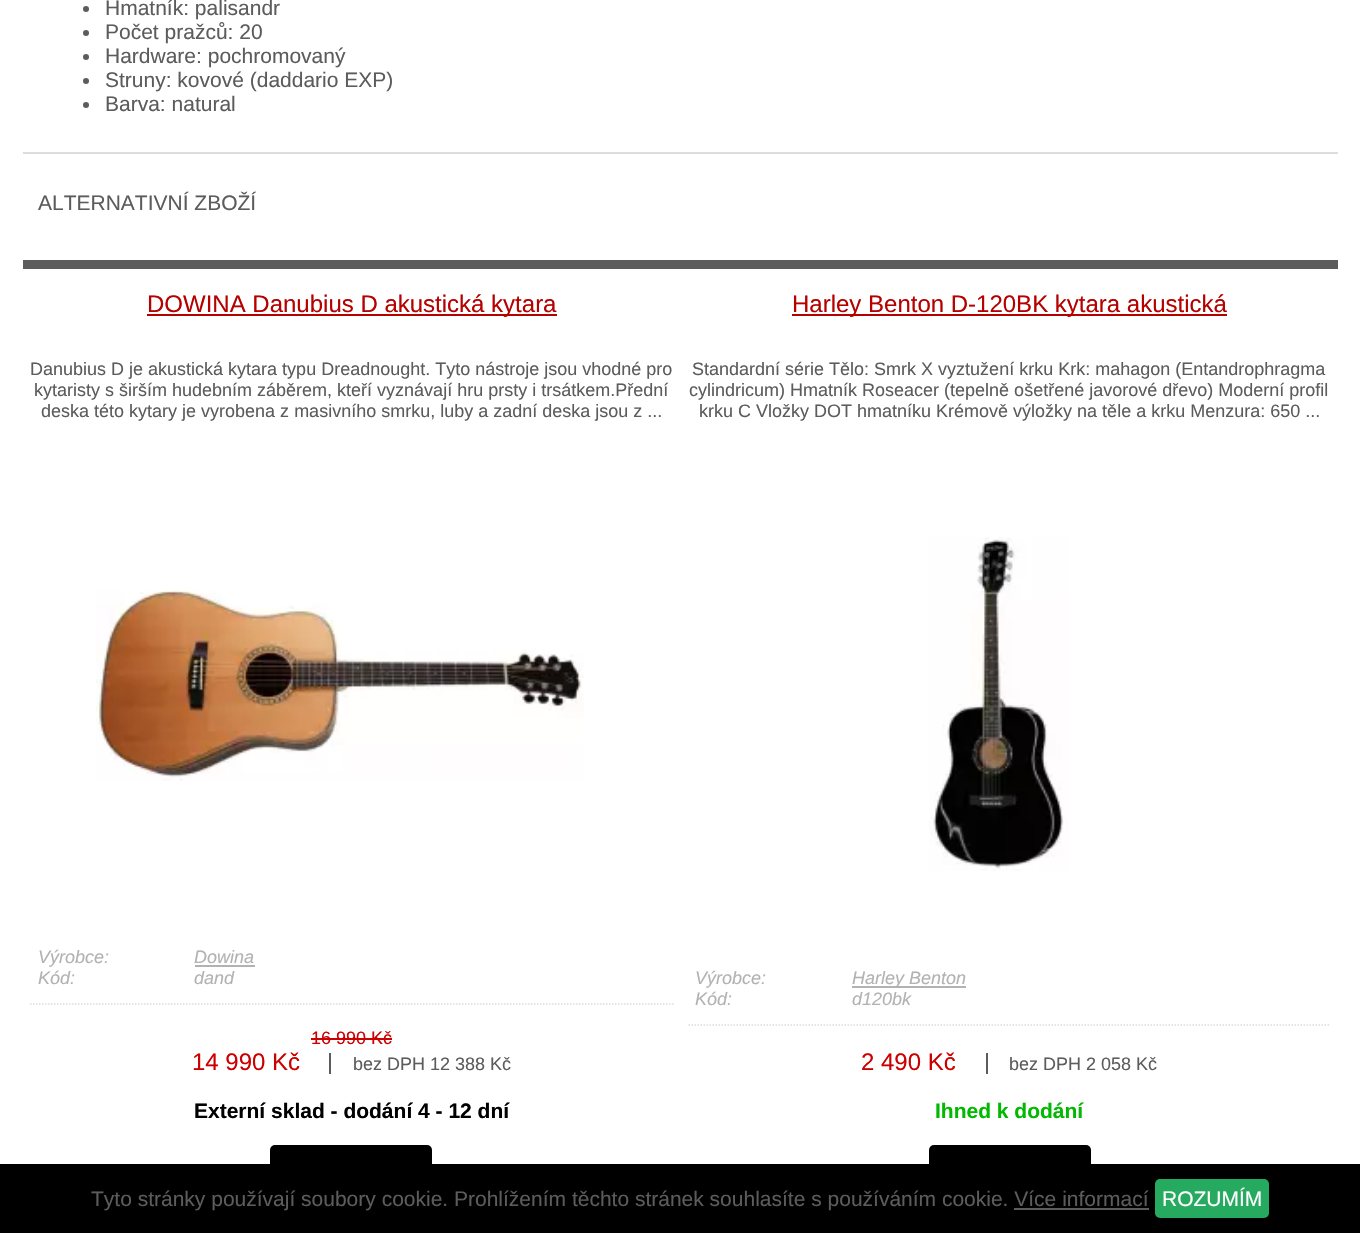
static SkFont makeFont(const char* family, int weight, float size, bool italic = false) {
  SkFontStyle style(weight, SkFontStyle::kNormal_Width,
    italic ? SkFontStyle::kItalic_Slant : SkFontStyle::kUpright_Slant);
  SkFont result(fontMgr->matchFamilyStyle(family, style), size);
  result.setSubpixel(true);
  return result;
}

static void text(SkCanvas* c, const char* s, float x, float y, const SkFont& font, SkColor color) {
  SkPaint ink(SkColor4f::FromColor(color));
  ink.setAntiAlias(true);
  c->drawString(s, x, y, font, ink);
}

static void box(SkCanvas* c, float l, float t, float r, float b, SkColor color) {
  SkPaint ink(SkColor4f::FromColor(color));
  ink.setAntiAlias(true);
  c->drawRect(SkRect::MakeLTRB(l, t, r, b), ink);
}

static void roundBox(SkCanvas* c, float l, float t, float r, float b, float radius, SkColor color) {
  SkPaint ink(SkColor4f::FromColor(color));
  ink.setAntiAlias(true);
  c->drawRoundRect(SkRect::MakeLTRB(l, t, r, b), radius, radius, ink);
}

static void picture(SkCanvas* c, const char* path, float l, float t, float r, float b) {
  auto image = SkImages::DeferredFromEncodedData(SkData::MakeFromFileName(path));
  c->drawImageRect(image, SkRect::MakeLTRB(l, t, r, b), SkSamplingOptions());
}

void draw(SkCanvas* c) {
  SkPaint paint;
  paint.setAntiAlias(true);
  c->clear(0xffffffff);
  box(c, 23, 152, 1338, 154, 0xffdedddd);
  paint.setColor(0xff5c5c5c);
  c->drawCircle(86, 9, 3, paint);
  SkFont face1 = makeFont("Liberation Sans", 400, 21);
  text(c, "Hmatník: palisandr", 105, 15, face1, 0xff5c5c5c);
  c->drawCircle(86, 33, 3, paint);
  text(c, "Počet pražců: 20", 105, 39, face1, 0xff5c5c5c);
  c->drawCircle(86, 57, 3, paint);
  text(c, "Hardware: pochromovaný", 105, 63, face1, 0xff5c5c5c);
  c->drawCircle(86, 81, 3, paint);
  text(c, "Struny: kovové (daddario EXP)", 105, 87, face1, 0xff5c5c5c);
  c->drawCircle(86, 105, 3, paint);
  text(c, "Barva: natural", 105, 111, face1, 0xff5c5c5c);
  text(c, "ALTERNATIVNÍ ZBOŽÍ", 38, 210, face1, 0xff5c5c5c);
  box(c, 23, 260, 1338, 269, 0xff5c5c5c);
  box(c, 147, 314, 557, 316, 0xffb50100);
  SkFont face2 = makeFont("Liberation Sans", 400, 24);
  text(c, "DOWINA Danubius D akustická kytara", 147, 312, face2, 0xffb50100);
  SkFont face3 = makeFont("Liberation Sans", 400, 18);
  text(c, "Danubius D je akustická kytara typu Dreadnought. Tyto nástroje jsou vhodné pro", 30, 375, face3, 0xff5c5c5c);
  text(c, "kytaristy s širším hudebním záběrem, kteří vyznávají hru prsty i trsátkem.Přední", 34, 396, face3, 0xff5c5c5c);
  text(c, "deska této kytary je vyrobena z masivního smrku, luby a zadní deska jsou z ...", 41, 417, face3, 0xff5c5c5c);
  picture(c, "img_01.png", 96, 590, 584, 781);
  SkFont face4 = makeFont("Liberation Sans", 400, 18, true);
  text(c, "Výrobce:", 38, 963, face4, 0xffb2b2b2);
  text(c, "Dowina", 194, 963, face4, 0xffb2b2b2);
  box(c, 195, 965, 255, 967, 0xffb2b2b2);
  text(c, "Kód:", 38, 984, face4, 0xffb2b2b2);
  text(c, "dand", 194, 984, face4, 0xffb2b2b2);
  paint.setStyle(SkPaint::kStroke_Style);
  paint.setStrokeWidth(1.5f);
  paint.setColor(0xffdedddd);
  paint.setPathEffect(SkDashPathEffect::Make({{1.5f, 1.5f}}, 0));
  c->drawPath(SkPathBuilder().moveTo(30, 1004).lineTo(673.5f, 1004).detach(), paint);
  paint.setPathEffect(nullptr);
  text(c, "16 990 Kč", 311, 1044, face3, 0xffcc0000);
  box(c, 311, 1038, 392, 1040, 0xffcc0000);
  text(c, "14 990 Kč", 192, 1070, face2, 0xffcc0000);
  text(c, "bez DPH 12 388 Kč", 353, 1070, face3, 0xff5c5c5c);
  box(c, 329, 1053, 331, 1074, 0xff5c5c5c);
  SkFont face5 = makeFont("Liberation Sans", 700, 21);
  text(c, "Externí sklad - dodání 4 - 12 dní", 194, 1118, face5, 0xff000000);
  roundBox(c, 270, 1145, 432, 1191, 5, 0xff000000);
  box(c, 792, 314, 1227, 316, 0xffb50100);
  text(c, "Harley Benton D-120BK kytara akustická", 792, 312, face2, 0xffb50100);
  text(c, "Standardní série Tělo: Smrk X vyztužení krku Krk: mahagon (Entandrophragma", 692, 375, face3, 0xff5c5c5c);
  text(c, "cylindricum) Hmatník Roseacer (tepelně ošetřené javorové dřevo) Moderní profil", 689, 396, face3, 0xff5c5c5c);
  text(c, "krku C Vložky DOT hmatníku Krémově výložky na těle a krku Menzura: 650 ...", 699, 417, face3, 0xff5c5c5c);
  picture(c, "img_02.png", 929, 537, 1068, 871);
  text(c, "Výrobce:", 695, 984, face4, 0xffb2b2b2);
  box(c, 852, 986, 966, 988, 0xffb2b2b2);
  text(c, "Harley Benton", 852, 984, face4, 0xffb2b2b2);
  text(c, "Kód:", 695, 1005, face4, 0xffb2b2b2);
  text(c, "d120bk", 852, 1005, face4, 0xffb2b2b2);
  paint.setPathEffect(SkDashPathEffect::Make({{1.5f, 1.5f}}, 0));
  c->drawPath(SkPathBuilder().moveTo(688.5f, 1025).lineTo(1330.5f, 1025).detach(), paint);
  paint.setPathEffect(nullptr);
  text(c, "2 490 Kč", 861, 1070, face2, 0xffcc0000);
  text(c, "bez DPH 2 058 Kč", 1009, 1070, face3, 0xff5c5c5c);
  box(c, 986, 1053, 988, 1074, 0xff5c5c5c);
  text(c, "Ihned k dodání", 935, 1118, face5, 0xff00b900);
  roundBox(c, 929, 1145, 1091, 1191, 5, 0xff000000);
  box(c, 0, 1164, 1360, 1233, 0xff000000);
  text(c, "Tyto stránky používají soubory cookie. Prohlížením těchto stránek souhlasíte s používáním cookie. Více informací", 91, 1206, face1, 0xff5c5c5c);
  roundBox(c, 1155, 1179, 1269, 1218, 5, 0xff26aa5f);
  text(c, "ROZUMÍM", 1162, 1206, face1, 0xffffffff);
  box(c, 1014, 1208, 1149, 1210, 0xff5c5c5c);
}
